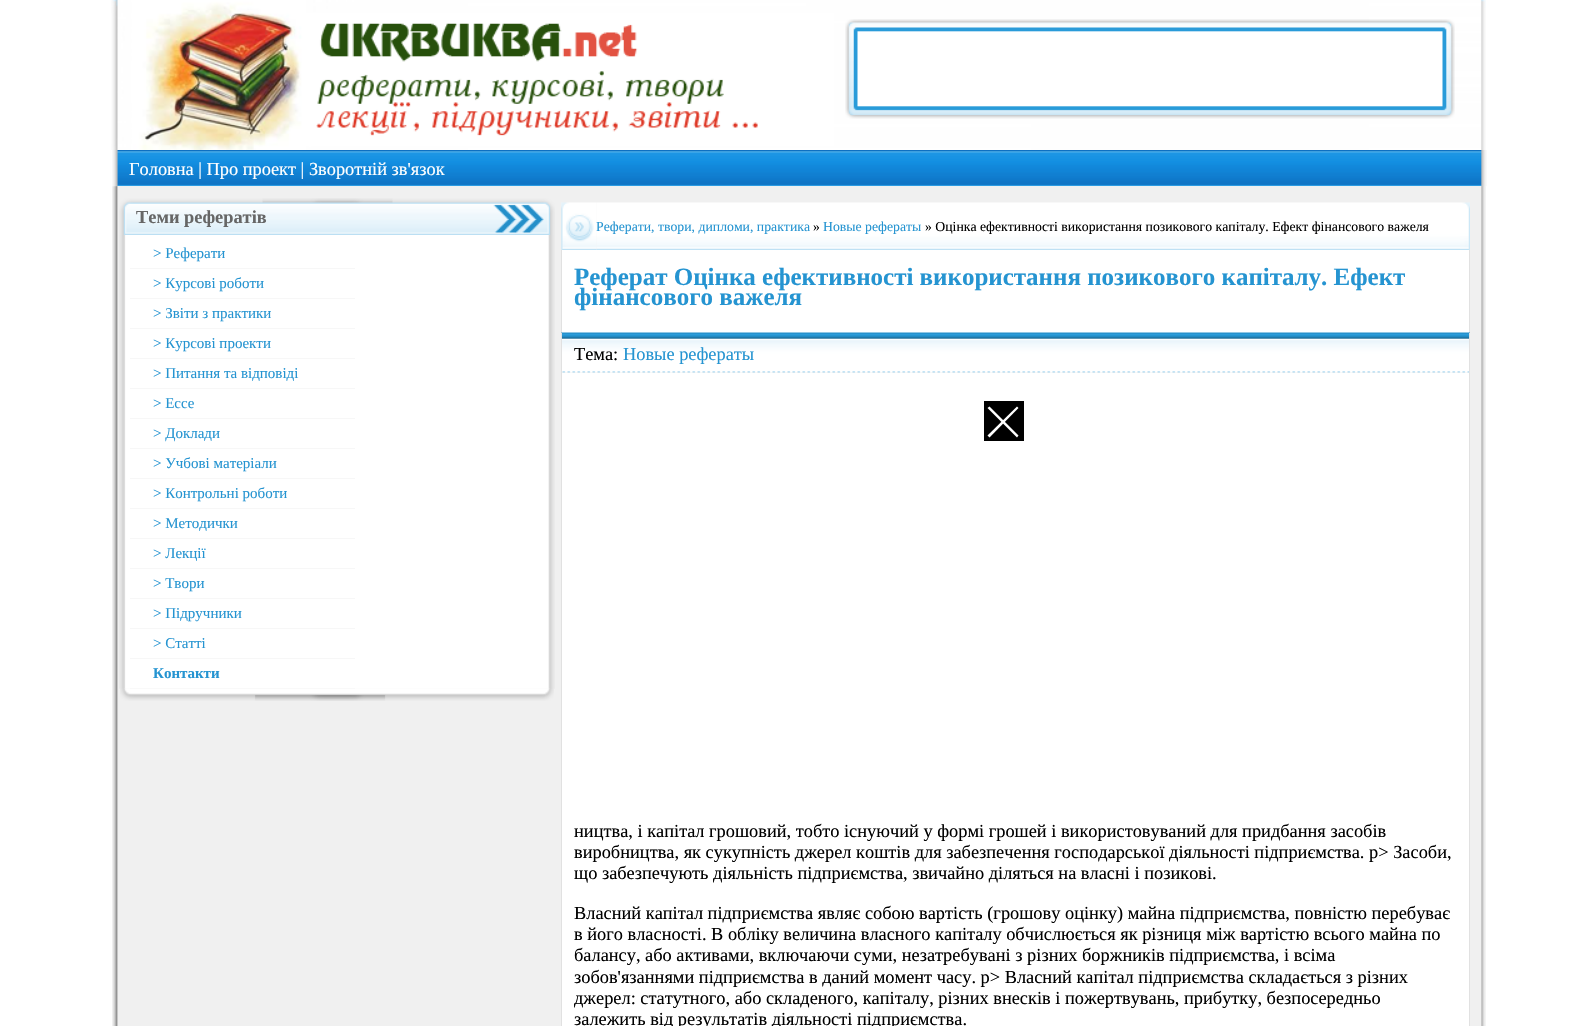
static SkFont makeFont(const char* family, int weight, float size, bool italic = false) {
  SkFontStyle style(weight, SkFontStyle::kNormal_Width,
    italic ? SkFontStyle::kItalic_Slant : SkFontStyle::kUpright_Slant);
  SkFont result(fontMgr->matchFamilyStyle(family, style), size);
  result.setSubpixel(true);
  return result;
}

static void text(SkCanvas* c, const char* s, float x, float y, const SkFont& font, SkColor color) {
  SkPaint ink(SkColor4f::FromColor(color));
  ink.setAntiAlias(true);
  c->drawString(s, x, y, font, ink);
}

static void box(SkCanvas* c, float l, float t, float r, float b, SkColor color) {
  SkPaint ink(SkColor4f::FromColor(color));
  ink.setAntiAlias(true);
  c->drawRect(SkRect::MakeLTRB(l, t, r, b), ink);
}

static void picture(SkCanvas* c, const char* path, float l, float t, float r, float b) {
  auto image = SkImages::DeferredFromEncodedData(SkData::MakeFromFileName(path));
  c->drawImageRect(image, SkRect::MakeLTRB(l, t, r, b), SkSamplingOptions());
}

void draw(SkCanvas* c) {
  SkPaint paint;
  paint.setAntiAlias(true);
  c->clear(0xffffffff);
  picture(c, "img_01.png", 111, 0, 1486, 150);
  picture(c, "img_02.png", 845, 19, 1455, 119);
  picture(c, "img_03.png", 112, 150, 1487, 187);
  SkFont face1 = makeFont("Liberation Serif", 400, 18.35f);
  text(c, "Головна | Про проект | Зворотнiй зв'язок", 129, 175, face1, 0xffffffff);
  picture(c, "img_04.png", 112, 186, 1486, 1026);
  picture(c, "img_05.png", 112, 186, 1486, 1026);
  picture(c, "img_06.png", 119, 198, 555, 235);
  SkFont face2 = makeFont("Liberation Serif", 700, 18.35f);
  text(c, "Теми рефератів", 136, 223, face2, 0xff666666);
  picture(c, "img_07.png", 119, 235, 555, 689);
  box(c, 130, 268, 355, 269, 0xfff7f7f7);
  SkFont face3 = makeFont("Liberation Serif", 400, 15);
  text(c, "> Реферати", 153, 258, face3, 0xff2594d1);
  box(c, 130, 298, 355, 299, 0xfff7f7f7);
  text(c, "> Курсові роботи", 153, 288, face3, 0xff2594d1);
  box(c, 130, 328, 355, 329, 0xfff7f7f7);
  text(c, "> Звіти з практики", 153, 318, face3, 0xff2594d1);
  box(c, 130, 358, 355, 359, 0xfff7f7f7);
  text(c, "> Курсові проекти", 153, 348, face3, 0xff2594d1);
  box(c, 130, 388, 355, 389, 0xfff7f7f7);
  text(c, "> Питання та відповіді", 153, 378, face3, 0xff2594d1);
  box(c, 130, 418, 355, 419, 0xfff7f7f7);
  text(c, "> Ессе", 153, 408, face3, 0xff2594d1);
  box(c, 130, 448, 355, 449, 0xfff7f7f7);
  text(c, "> Доклади", 153, 438, face3, 0xff2594d1);
  box(c, 130, 478, 355, 479, 0xfff7f7f7);
  text(c, "> Учбові матеріали", 153, 468, face3, 0xff2594d1);
  box(c, 130, 508, 355, 509, 0xfff7f7f7);
  text(c, "> Контрольні роботи", 153, 498, face3, 0xff2594d1);
  box(c, 130, 538, 355, 539, 0xfff7f7f7);
  text(c, "> Методички", 153, 528, face3, 0xff2594d1);
  box(c, 130, 568, 355, 569, 0xfff7f7f7);
  text(c, "> Лекції", 153, 558, face3, 0xff2594d1);
  box(c, 130, 598, 355, 599, 0xfff7f7f7);
  text(c, "> Твори", 153, 588, face3, 0xff2594d1);
  box(c, 130, 628, 355, 629, 0xfff7f7f7);
  text(c, "> Підручники", 153, 618, face3, 0xff2594d1);
  box(c, 130, 658, 355, 659, 0xfff7f7f7);
  text(c, "> Статті", 153, 648, face3, 0xff2594d1);
  box(c, 130, 688, 355, 689, 0xfff7f7f7);
  SkFont face4 = makeFont("Liberation Serif", 700, 15);
  text(c, "Контакти", 153, 678, face4, 0xff2594d1);
  picture(c, "img_08.png", 120, 688, 554, 701);
  picture(c, "img_09.png", 561, 202, 597, 250);
  picture(c, "img_10.png", 596, 202, 1460, 250);
  SkFont face5 = makeFont("Liberation Serif", 400, 13.75f);
  text(c, "Реферати, твори, дипломи, практика", 596, 231, face5, 0xff2594d1);
  text(c, "»", 813, 231, face5, 0xff000000);
  text(c, "Новые рефераты", 823, 231, face5, 0xff2594d1);
  text(c, "» Оцінка ефективності використання позикового капіталу. Ефект фінансового важеля", 925, 231, face5, 0xff000000);
  picture(c, "img_11.png", 1460, 202, 1470, 250);
  box(c, 562, 250, 1469, 333, 0xffffffff);
  box(c, 1469, 250, 1470, 333, 0xffe1e1e1);
  box(c, 561, 250, 562, 333, 0xffe1e1e1);
  SkFont face6 = makeFont("Liberation Serif", 700, 25);
  text(c, "Реферат Оцінка ефективності використання позикового капіталу. Ефект", 574, 285, face6, 0xff2594d1);
  text(c, "фінансового важеля", 574, 305, face6, 0xff2594d1);
  picture(c, "img_12.png", 561, 332, 1470, 373);
  box(c, 1469, 333, 1470, 1026, 0xffe1e1e1);
  box(c, 561, 333, 562, 1026, 0xffe1e1e1);
  text(c, "Тема:", 574, 360, face1, 0xff000000);
  text(c, "Новые рефераты", 623, 360, face1, 0xff2594d1);
  box(c, 562, 373, 1469, 1026, 0xffffffff);
  text(c, "ництва, і капітал грошовий, тобто існуючий у формі грошей і використовуваний для придбання засобів", 574, 837, face1, 0xff000000);
  text(c, "виробництва, як сукупність джерел коштів для забезпечення господарської діяльності підприємства. p> Засоби,", 574, 858, face1, 0xff000000);
  text(c, "що забезпечують діяльність підприємства, звичайно діляться на власні і позикові.", 574, 879, face1, 0xff000000);
  text(c, "Власний капітал підприємства являє собою вартість (грошову оцінку) майна підприємства, повністю перебуває", 574, 919, face1, 0xff000000);
  text(c, "в його власності. В обліку величина власного капіталу обчислюється як різниця між вартістю всього майна по", 574, 940, face1, 0xff000000);
  text(c, "балансу, або активами, включаючи суми, незатребувані з різних боржників підприємства, і всіма", 574, 961, face1, 0xff000000);
  text(c, "зобов'язаннями підприємства в даний момент часу. p> Власний капітал підприємства складається з різних", 574, 983, face1, 0xff000000);
  text(c, "джерел: статутного, або складеного, капіталу, різних внесків і пожертвувань, прибутку, безпосередньо", 574, 1004, face1, 0xff000000);
  text(c, "залежить від результатів діяльності підприємства.", 574, 1025, face1, 0xff000000);
  box(c, 984, 401, 1024, 441, 0xff000000);
  paint.setColor(0xffffffff);
  c->drawPath(SkPathBuilder().moveTo(1017, 406.5f).lineTo(1018.5f, 408).lineTo(989.5f, 437.5f).lineTo(987.5f, 435.5f).close().detach(), paint);
  c->drawPath(SkPathBuilder().moveTo(987.5f, 408).lineTo(989.5f, 406.5f).lineTo(1018.5f, 435.5f).lineTo(1017, 437.5f).close().detach(), paint);
}
